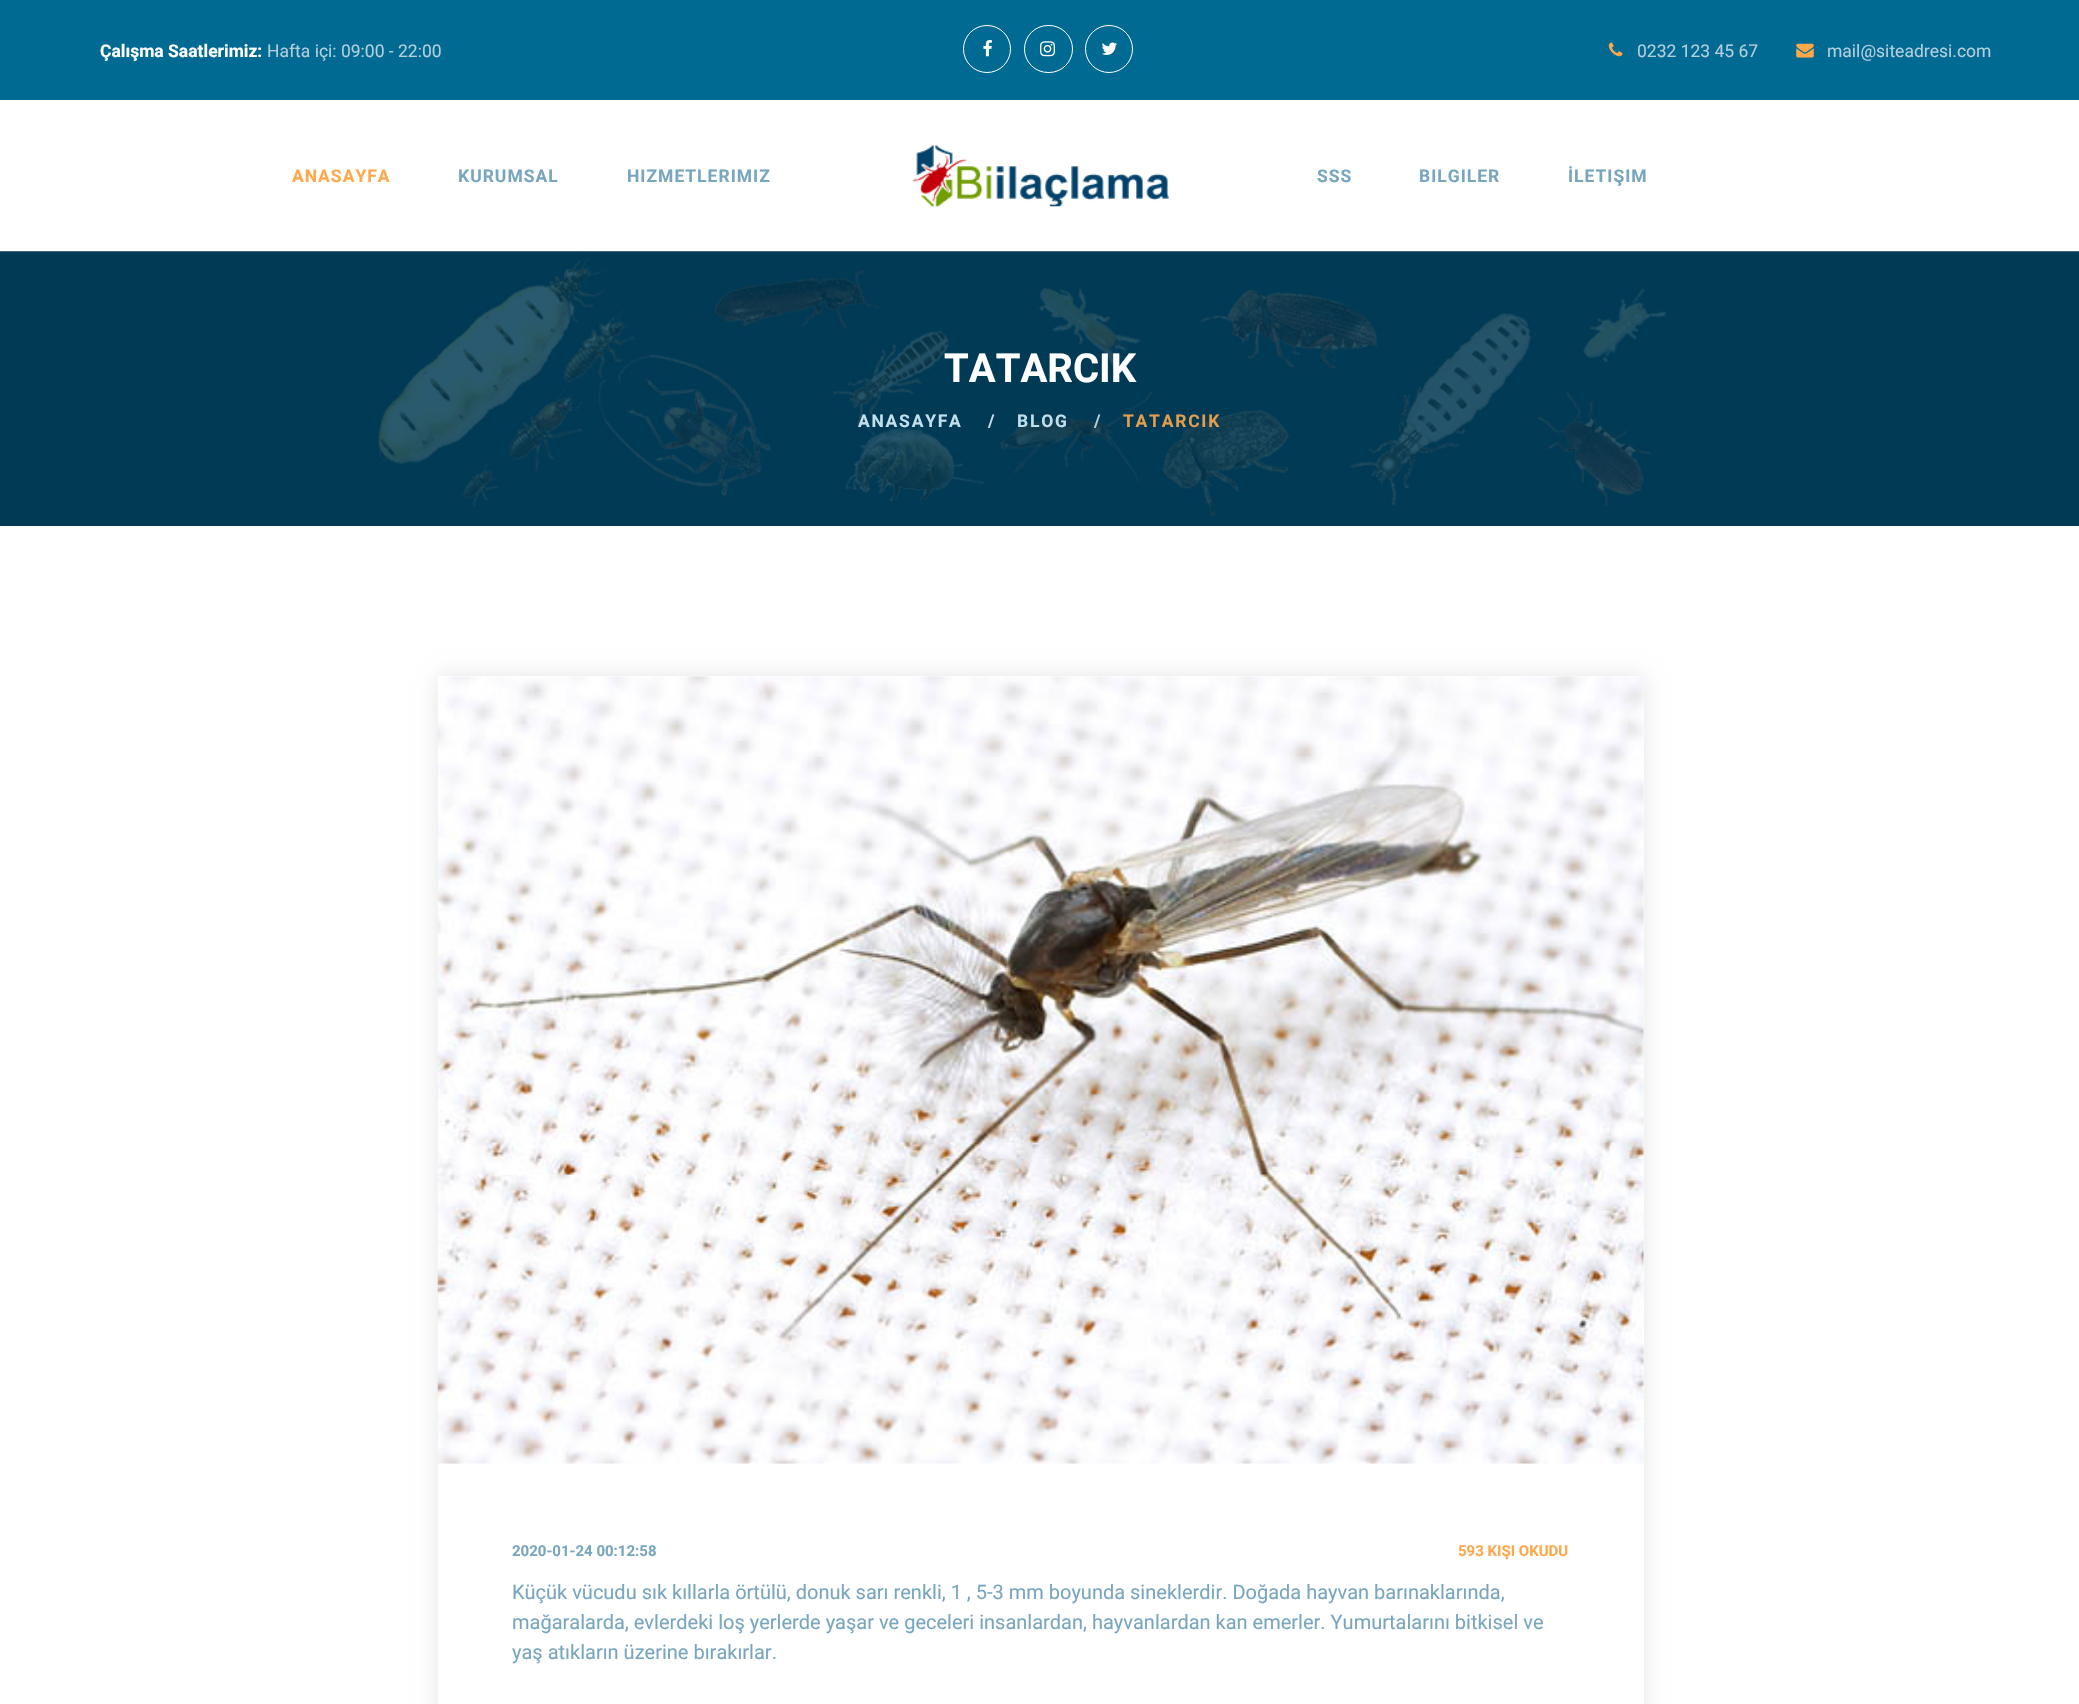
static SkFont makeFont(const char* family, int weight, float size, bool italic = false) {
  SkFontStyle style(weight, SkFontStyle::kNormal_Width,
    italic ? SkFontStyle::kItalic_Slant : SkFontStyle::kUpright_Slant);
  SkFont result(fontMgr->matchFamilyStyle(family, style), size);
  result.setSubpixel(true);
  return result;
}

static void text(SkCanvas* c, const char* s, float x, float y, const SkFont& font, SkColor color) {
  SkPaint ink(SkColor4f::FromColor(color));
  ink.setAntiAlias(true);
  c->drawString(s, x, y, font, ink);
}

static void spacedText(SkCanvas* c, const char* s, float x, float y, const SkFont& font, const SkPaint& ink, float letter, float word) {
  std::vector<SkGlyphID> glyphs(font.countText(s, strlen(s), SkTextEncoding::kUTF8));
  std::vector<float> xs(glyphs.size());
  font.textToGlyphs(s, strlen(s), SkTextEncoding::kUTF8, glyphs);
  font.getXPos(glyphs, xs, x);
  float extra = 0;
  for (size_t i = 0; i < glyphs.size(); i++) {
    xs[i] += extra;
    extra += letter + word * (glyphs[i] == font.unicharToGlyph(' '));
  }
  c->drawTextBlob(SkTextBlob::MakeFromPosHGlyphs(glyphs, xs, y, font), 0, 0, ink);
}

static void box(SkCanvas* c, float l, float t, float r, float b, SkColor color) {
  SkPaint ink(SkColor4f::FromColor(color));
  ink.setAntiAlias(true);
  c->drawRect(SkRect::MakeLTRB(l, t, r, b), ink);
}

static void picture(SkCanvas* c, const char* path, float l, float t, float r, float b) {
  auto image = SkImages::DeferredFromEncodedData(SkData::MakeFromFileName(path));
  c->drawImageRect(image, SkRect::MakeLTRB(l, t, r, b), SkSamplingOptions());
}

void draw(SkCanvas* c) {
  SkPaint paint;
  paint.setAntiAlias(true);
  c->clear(0xffffffff);
  box(c, 0, 0, 2079, 100, 0xff006a93);
  SkFont face1 = makeFont("Roboto", 700, 17.5f);
  text(c, "Çalışma Saatlerimiz:", 100, 57, face1, 0xffffffff);
  SkFont face2 = makeFont("Roboto", 400, 17.5f);
  text(c, "Hafta içi: 09:00 - 22:00", 267, 57, face2, 0xffb4cedc);
  paint.setStyle(SkPaint::kStroke_Style);
  paint.setStrokeWidth(1);
  paint.setColor(0xffffffff);
  c->drawCircle(987, 49, 23.5f, paint);
  picture(c, "img_01.png", 983, 40, 992, 57);
  c->drawRoundRect(SkRect::MakeLTRB(1024.5f, 25.5f, 1072.5f, 72.5f), 23.5f, 23.5f, paint);
  picture(c, "img_02.png", 1040, 41, 1055, 57);
  c->drawCircle(1109, 49, 23.5f, paint);
  picture(c, "img_03.png", 1101, 42, 1117, 55);
  picture(c, "img_04.png", 1608, 42, 1623, 57);
  text(c, "0232 123 45 67", 1637, 57, face2, 0xffb4cedc);
  picture(c, "img_05.png", 1796, 43, 1814, 58);
  text(c, "mail@siteadresi.com", 1827, 57, face2, 0xffb4cedc);
  picture(c, "img_06.png", 912, 144, 1169, 207);
  paint.setStyle(SkPaint::kFill_Style);
  paint.setColor(0xfffea84b);
  spacedText(c, "ANASAYFA", 292, 182, face1, paint, 1, 0);
  paint.setColor(0xff78a6bf);
  spacedText(c, "KURUMSAL", 458, 182, face1, paint, 1, 0);
  spacedText(c, "HIZMETLERIMIZ", 627, 182, face1, paint, 1, 0);
  spacedText(c, "SSS", 1317, 182, face1, paint, 1, 0);
  spacedText(c, "BILGILER", 1419, 182, face1, paint, 1, 0);
  spacedText(c, "İLETIŞIM", 1568, 182, face1, paint, 1, 0);
  picture(c, "img_07.png", 0, 251, 2079, 526);
  SkFont face3 = makeFont("Roboto", 700, 40);
  text(c, "TATARCIK", 944, 382, face3, 0xffffffff);
  paint.setColor(0xffc2dfee);
  spacedText(c, "ANASAYFA", 858, 427, face1, paint, 1.75f, 0);
  spacedText(c, "/", 988, 427, face1, paint, 1.75f, 0);
  spacedText(c, "BLOG", 1017, 427, face1, paint, 1.75f, 0);
  paint.setColor(0xffb4cedc);
  spacedText(c, "/", 1094, 427, face1, paint, 1.75f, 0);
  paint.setColor(0xffe59d4c);
  spacedText(c, "TATARCIK", 1123, 427, face1, paint, 1.75f, 0);
  c->save();
  c->clipPath(SkPathBuilder(SkPathFillType::kEvenOdd).moveTo(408, 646).lineTo(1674, 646).lineTo(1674, 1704).lineTo(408, 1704).close().moveTo(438, 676).lineTo(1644, 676).lineTo(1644, 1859).lineTo(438, 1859).close().detach(), true);
  paint.setColor(0x1a000000);
  paint.setMaskFilter(SkMaskFilter::MakeBlur(kNormal_SkBlurStyle, 9.5f));
  c->drawRect(SkRect::MakeLTRB(438, 676, 1644, 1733), paint);
  paint.setMaskFilter(nullptr);
  c->restore();
  picture(c, "img_08.png", 437, 676, 1644, 1464);
  SkFont face4 = makeFont("Roboto", 700, 15);
  text(c, "2020-01-24 00:12:58", 512, 1556, face4, 0xff78a6bf);
  text(c, "593 KIŞI OKUDU", 1458, 1556, face4, 0xfffea84b);
  SkFont face5 = makeFont("Roboto", 400, 20);
  text(c, "Küçük vücudu sık kıllarla örtülü, donuk sarı renkli, 1 , 5-3 mm boyunda sineklerdir. Doğada hayvan barınaklarında,", 512, 1599, face5, 0xff78a6bf);
  text(c, "mağaralarda, evlerdeki loş yerlerde yaşar ve geceleri insanlardan, hayvanlardan kan emerler. Yumurtalarını bitkisel ve", 512, 1629, face5, 0xff78a6bf);
  text(c, "yaş atıkların üzerine bırakırlar.", 512, 1659, face5, 0xff78a6bf);
}
